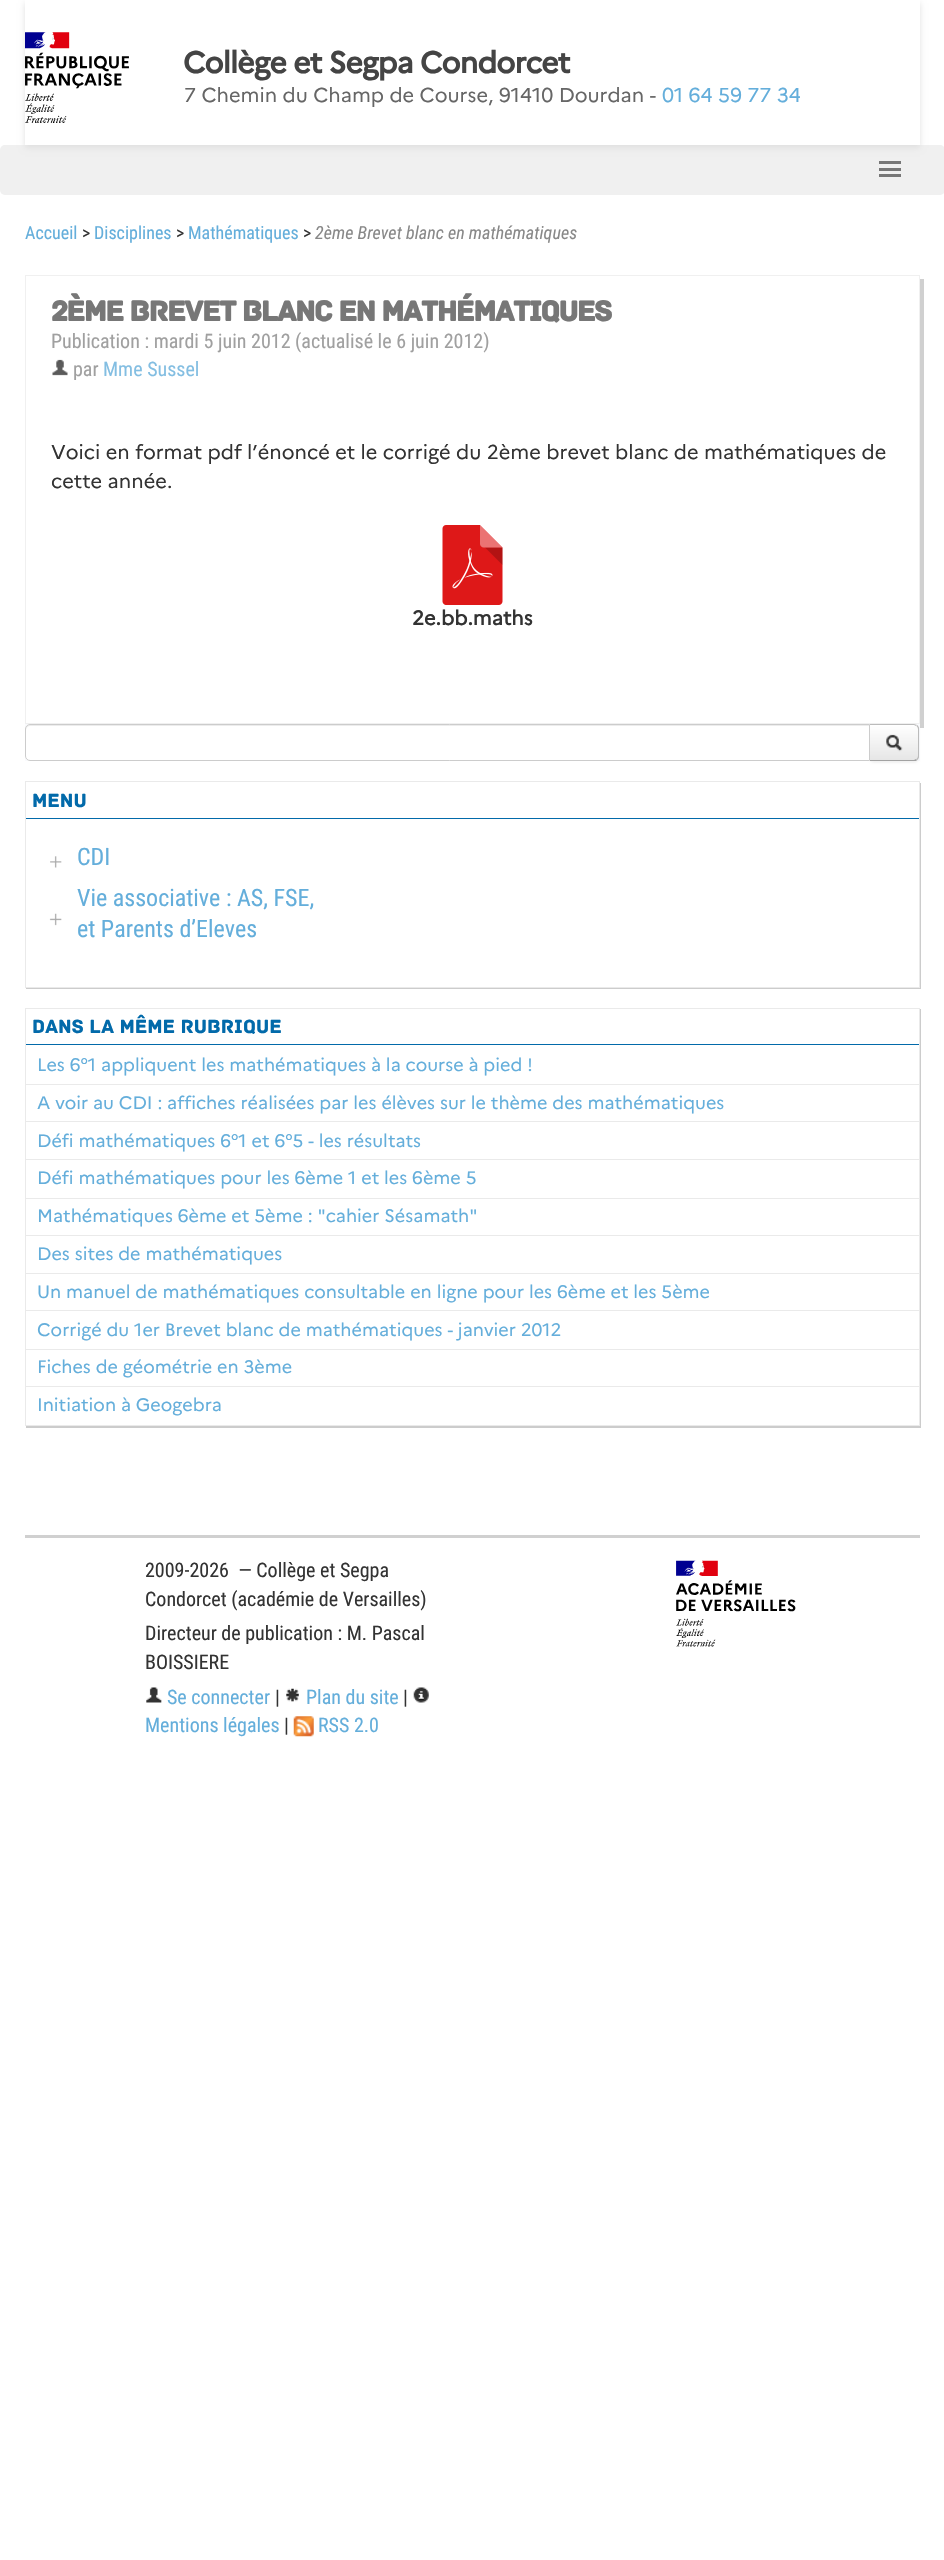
static SkFont makeFont(const char* family, int weight, float size, bool italic = false) {
  SkFontStyle style(weight, SkFontStyle::kNormal_Width,
    italic ? SkFontStyle::kItalic_Slant : SkFontStyle::kUpright_Slant);
  SkFont result(fontMgr->matchFamilyStyle(family, style), size);
  result.setSubpixel(true);
  return result;
}

static void text(SkCanvas* c, const char* s, float x, float y, const SkFont& font, SkColor color) {
  SkPaint ink(SkColor4f::FromColor(color));
  ink.setAntiAlias(true);
  c->drawString(s, x, y, font, ink);
}

static void spacedText(SkCanvas* c, const char* s, float x, float y, const SkFont& font, const SkPaint& ink, float letter, float word) {
  std::vector<SkGlyphID> glyphs(font.countText(s, strlen(s), SkTextEncoding::kUTF8));
  std::vector<float> xs(glyphs.size());
  font.textToGlyphs(s, strlen(s), SkTextEncoding::kUTF8, glyphs);
  font.getXPos(glyphs, xs, x);
  float extra = 0;
  for (size_t i = 0; i < glyphs.size(); i++) {
    xs[i] += extra;
    extra += letter + word * (glyphs[i] == font.unicharToGlyph(' '));
  }
  c->drawTextBlob(SkTextBlob::MakeFromPosHGlyphs(glyphs, xs, y, font), 0, 0, ink);
}

static void box(SkCanvas* c, float l, float t, float r, float b, SkColor color) {
  SkPaint ink(SkColor4f::FromColor(color));
  ink.setAntiAlias(true);
  c->drawRect(SkRect::MakeLTRB(l, t, r, b), ink);
}

static void roundBox(SkCanvas* c, float l, float t, float r, float b, float radius, SkColor color) {
  SkPaint ink(SkColor4f::FromColor(color));
  ink.setAntiAlias(true);
  c->drawRoundRect(SkRect::MakeLTRB(l, t, r, b), radius, radius, ink);
}

static void picture(SkCanvas* c, const char* path, float l, float t, float r, float b) {
  auto image = SkImages::DeferredFromEncodedData(SkData::MakeFromFileName(path));
  c->drawImageRect(image, SkRect::MakeLTRB(l, t, r, b), SkSamplingOptions());
}

void draw(SkCanvas* c) {
  SkPaint paint;
  paint.setAntiAlias(true);
  c->clear(0xffffffff);
  roundBox(c, 0, 145, 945, 195, 5, 0xfff0f0f0);
  c->save();
  c->clipPath(SkPathBuilder(SkPathFillType::kEvenOdd).moveTo(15, 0).lineTo(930, 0).lineTo(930, 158).lineTo(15, 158).close().moveTo(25, 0).lineTo(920, 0).lineTo(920, 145).lineTo(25, 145).close().detach(), true);
  paint.setColor(0xffe0e0e0);
  paint.setMaskFilter(SkMaskFilter::MakeBlur(kNormal_SkBlurStyle, 3));
  c->drawRect(SkRect::MakeLTRB(25, 3, 920, 148), paint);
  paint.setMaskFilter(nullptr);
  c->restore();
  picture(c, "img_01.png", 25, 32, 129, 123);
  SkFont face1 = makeFont("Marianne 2", 700, 30);
  paint.setColor(0xff444444);
  spacedText(c, "Collège et Segpa Condorcet", 183, 73, face1, paint, -0.9f, 0);
  SkFont face2 = makeFont("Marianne", 400, 20);
  text(c, "7 Chemin du Champ de Course, 91410 Dourdan -", 184, 102, face2, 0xff666666);
  text(c, "01 64 59 77 34", 662, 102, face2, 0xff64aedb);
  box(c, 879, 161, 901, 164, 0xff777777);
  box(c, 879, 168, 901, 171, 0xff777777);
  box(c, 879, 174, 901, 177, 0xff777777);
  SkFont face3 = makeFont("Roboto Condensed", 400, 18);
  text(c, "Accueil", 25, 239, face3, 0xff64aedb);
  text(c, ">", 82, 239, face3, 0xff333333);
  text(c, "Disciplines", 94, 239, face3, 0xff64aedb);
  text(c, ">", 176, 239, face3, 0xff333333);
  text(c, "Mathématiques", 188, 239, face3, 0xff64aedb);
  text(c, ">", 303, 239, face3, 0xff333333);
  SkFont face4 = makeFont("Roboto Condensed", 400, 18, true);
  text(c, "2ème Brevet blanc en mathématiques", 315, 239, face4, 0xff888888);
  paint.setColor(0xffd0d0d0);
  c->drawPath(SkPathBuilder().moveTo(29, 724).lineTo(29, 728).lineTo(924, 728).lineTo(924, 279).lineTo(920, 279).lineTo(920, 724).close().detach(), paint);
  paint.setStyle(SkPaint::kStroke_Style);
  paint.setStrokeWidth(1);
  paint.setColor(0xfff0f0f0);
  c->drawRect(SkRect::MakeLTRB(25.5f, 275.5f, 919.5f, 723.5f), paint);
  SkFont face5 = makeFont("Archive", 700, 30);
  paint.setStyle(SkPaint::kFill_Style);
  paint.setColor(0xff777777);
  spacedText(c, "2ème Brevet blanc en mathématiques", 51, 321, face5, paint, -1.45f, 0);
  SkFont face6 = makeFont("Roboto Condensed", 400, 20);
  text(c, "Publication : mardi 5 juin 2012 (actualisé le 6 juin 2012)", 51, 348, face6, 0xffa0a0a0);
  picture(c, "img_02.png", 52, 359, 68, 376);
  text(c, "par", 73, 376, face6, 0xffa0a0a0);
  text(c, "Mme Sussel", 103, 376, face6, 0xff83bee2);
  text(c, "Voici en format pdf l’énoncé et le corrigé du 2ème brevet blanc de mathématiques de", 51, 459, face2, 0xff333333);
  text(c, "cette année.", 51, 488, face2, 0xff333333);
  picture(c, "img_03.png", 442, 525, 503, 605);
  SkFont face7 = makeFont("Marianne", 700, 20);
  text(c, "2e.bb.maths", 412, 625, face7, 0xff333333);
  box(c, 25, 724, 920, 761, 0xfff9fafd);
  paint.setColor(0x0d000000);
  paint.setMaskFilter(SkMaskFilter::MakeBlur(kNormal_SkBlurStyle, 1));
  c->drawRoundRect(SkRect::MakeLTRB(869, 725, 919, 763), 5, 5, paint);
  paint.setMaskFilter(nullptr);
  paint.setColor(0xfff5f5f5);
  c->drawPath(SkPathBuilder().moveTo(869, 724).lineTo(914, 724).cubicTo(917, 724, 919, 726, 919, 729).lineTo(919, 756).cubicTo(919, 759, 917, 761, 914, 761).lineTo(869, 761).close().detach(), paint);
  c->save();
  c->clipPath(SkPathBuilder().moveTo(869, 724).lineTo(914, 724).cubicTo(917, 724, 919, 726, 919, 729).lineTo(919, 756).cubicTo(919, 759, 917, 761, 914, 761).lineTo(869, 761).close().detach(), true);
  {
    const SkColor colors[] = {0xffffffff, 0xffe6e6e6};
    const float stops[] = {0, 1};
    const SkPoint ends[] = {{894, 725}, {894, 760}};
    paint.setShader(SkGradientShader::MakeLinear(ends, colors, stops, 2, SkTileMode::kClamp));
    paint.setAlpha(255);
  }
  c->drawRect(SkRect::MakeLTRB(870, 725, 919, 760), paint);
  c->restore();
  paint.setShader(nullptr);
  paint.setColor(0xffbbbbbb);
  c->drawPath(SkPathBuilder().moveTo(869, 724).lineTo(870, 725).lineTo(914, 725).lineTo(916, 726).lineTo(917, 725).lineTo(914, 724).close().detach(), paint);
  c->drawPath(SkPathBuilder().moveTo(917.5f, 725).lineTo(919, 727.5f).lineTo(919, 757.5f).lineTo(917.5f, 760).lineTo(916.5f, 759).cubicTo(917.5f, 758, 918, 757, 918, 756).lineTo(918, 729).cubicTo(918, 728, 917.5f, 727, 916.5f, 726).close().detach(), paint);
  paint.setColor(0xffa2a2a2);
  c->drawPath(SkPathBuilder().moveTo(917, 760).cubicTo(917, 761, 915, 761, 914, 761).lineTo(869, 761).lineTo(870, 760).lineTo(914, 760).lineTo(916, 759).close().detach(), paint);
  paint.setColor(0xffffffff);
  c->drawPath(SkPathBuilder().moveTo(30, 724).lineTo(870, 724).lineTo(870, 761).lineTo(30, 761).cubicTo(27, 761, 25, 759, 25, 756).lineTo(25, 729).cubicTo(25, 726, 27, 724, 30, 724).close().detach(), paint);
  paint.setColor(0xffececec);
  c->drawPath(SkPathBuilder().moveTo(30, 726).lineTo(869, 726).lineTo(869, 725).lineTo(30, 725).cubicTo(27, 725, 26, 727, 26, 730).cubicTo(26, 728, 28, 726, 30, 726).close().detach(), paint);
  paint.setStyle(SkPaint::kStroke_Style);
  paint.setColor(0xffcccccc);
  c->drawPath(SkPathBuilder().moveTo(30, 724.5f).lineTo(869.5f, 724.5f).lineTo(869.5f, 760.5f).lineTo(30, 760.5f).cubicTo(27.5f, 760.5f, 25.5f, 758.5f, 25.5f, 756).lineTo(25.5f, 729).cubicTo(25.5f, 726.5f, 27.5f, 724.5f, 30, 724.5f).close().detach(), paint);
  picture(c, "img_04.png", 886, 734, 903, 752);
  paint.setStyle(SkPaint::kFill_Style);
  c->drawPath(SkPathBuilder().moveTo(26, 988).lineTo(26, 989).lineTo(921, 989).lineTo(921, 783).lineTo(920, 783).lineTo(920, 988).close().detach(), paint);
  paint.setStyle(SkPaint::kStroke_Style);
  paint.setColor(0xffeaeaea);
  c->drawRect(SkRect::MakeLTRB(25.5f, 781.5f, 919.5f, 987.5f), paint);
  box(c, 26, 818, 919, 819, 0xff026aaa);
  SkFont face8 = makeFont("Archive", 400, 20);
  text(c, "Menu", 32, 807, face8, 0xff026aaa);
  picture(c, "img_05.png", 50, 856, 62, 868);
  SkFont face9 = makeFont("Roboto Condensed", 400, 24);
  text(c, "CDI", 77, 865, face9, 0xff64aedb);
  picture(c, "img_06.png", 49, 913, 62, 926);
  text(c, "Vie associative : AS, FSE,", 77, 906, face9, 0xff64aedb);
  text(c, "et Parents d’Eleves", 77, 937, face9, 0xff64aedb);
  paint.setStyle(SkPaint::kFill_Style);
  paint.setColor(0xffcccccc);
  c->drawPath(SkPathBuilder().moveTo(26, 1426).lineTo(26, 1428).lineTo(921, 1428).lineTo(921, 1009).lineTo(920, 1009).lineTo(920, 1426).close().detach(), paint);
  paint.setStyle(SkPaint::kStroke_Style);
  paint.setColor(0xffeaeaea);
  c->drawRect(SkRect::MakeLTRB(25.5f, 1008.5f, 919.5f, 1425.5f), paint);
  box(c, 26, 1044, 919, 1045, 0xff026aaa);
  text(c, "Dans la même rubrique", 32, 1033, face8, 0xff026aaa);
  SkFont face10 = makeFont("Marianne", 400, 18);
  text(c, "Les 6°1 appliquent les mathématiques à la course à pied !", 37, 1071, face10, 0xff64aedb);
  box(c, 26, 1084, 919, 1085, 0xffeaeaea);
  text(c, "A voir au CDI : affiches réalisées par les élèves sur le thème des mathématiques", 37, 1109, face10, 0xff64aedb);
  box(c, 26, 1121, 919, 1122, 0xffeaeaea);
  text(c, "Défi mathématiques 6°1 et 6°5 - les résultats", 37, 1147, face10, 0xff64aedb);
  box(c, 26, 1159, 919, 1160, 0xffeaeaea);
  text(c, "Défi mathématiques pour les 6ème 1 et les 6ème 5", 37, 1184, face10, 0xff64aedb);
  box(c, 26, 1198, 919, 1199, 0xffeaeaea);
  text(c, "Mathématiques 6ème et 5ème : \"cahier Sésamath\"", 37, 1222, face10, 0xff64aedb);
  box(c, 26, 1235, 919, 1236, 0xffeaeaea);
  text(c, "Des sites de mathématiques", 37, 1260, face10, 0xff64aedb);
  box(c, 26, 1273, 919, 1274, 0xffeaeaea);
  text(c, "Un manuel de mathématiques consultable en ligne pour les 6ème et les 5ème", 37, 1298, face10, 0xff64aedb);
  box(c, 26, 1310, 919, 1311, 0xffeaeaea);
  text(c, "Corrigé du 1er Brevet blanc de mathématiques - janvier 2012", 37, 1336, face10, 0xff64aedb);
  box(c, 26, 1349, 919, 1350, 0xffeaeaea);
  text(c, "Fiches de géométrie en 3ème", 37, 1373, face10, 0xff64aedb);
  box(c, 26, 1386, 919, 1387, 0xffeaeaea);
  text(c, "Initiation à Geogebra", 37, 1411, face10, 0xff64aedb);
  box(c, 25, 1535, 920, 1538, 0xffd0d0d0);
  text(c, "2009-2026  — Collège et Segpa", 145, 1577, face6, 0xff333333);
  text(c, "Condorcet (académie de Versailles)", 145, 1606, face6, 0xff333333);
  text(c, "Directeur de publication : M. Pascal", 145, 1640, face6, 0xff333333);
  text(c, "BOISSIERE", 145, 1669, face6, 0xff333333);
  picture(c, "img_07.png", 146, 1687, 162, 1703);
  text(c, "Se connecter", 167, 1704, face6, 0xff64aedb);
  text(c, "|", 275, 1704, face6, 0xff333333);
  picture(c, "img_08.png", 286, 1688, 299, 1702);
  text(c, "Plan du site", 306, 1704, face6, 0xff64aedb);
  text(c, "|", 403, 1704, face6, 0xff333333);
  picture(c, "img_09.png", 413, 1687, 429, 1703);
  text(c, "Mentions légales", 145, 1732, face6, 0xff64aedb);
  text(c, "|", 284, 1732, face6, 0xff333333);
  picture(c, "img_10.png", 293, 1716, 314, 1737);
  text(c, "RSS 2.0", 318, 1732, face6, 0xff64aedb);
  picture(c, "img_11.png", 676, 1560, 796, 1647);
}
